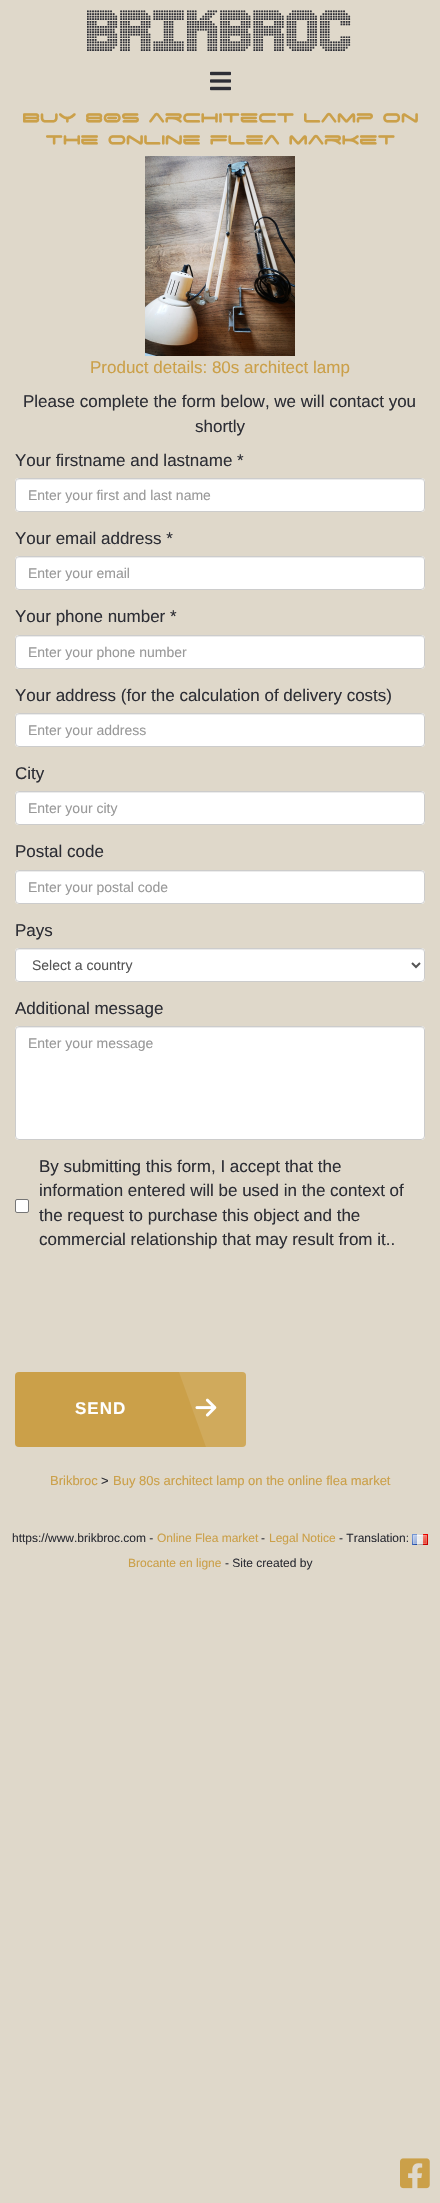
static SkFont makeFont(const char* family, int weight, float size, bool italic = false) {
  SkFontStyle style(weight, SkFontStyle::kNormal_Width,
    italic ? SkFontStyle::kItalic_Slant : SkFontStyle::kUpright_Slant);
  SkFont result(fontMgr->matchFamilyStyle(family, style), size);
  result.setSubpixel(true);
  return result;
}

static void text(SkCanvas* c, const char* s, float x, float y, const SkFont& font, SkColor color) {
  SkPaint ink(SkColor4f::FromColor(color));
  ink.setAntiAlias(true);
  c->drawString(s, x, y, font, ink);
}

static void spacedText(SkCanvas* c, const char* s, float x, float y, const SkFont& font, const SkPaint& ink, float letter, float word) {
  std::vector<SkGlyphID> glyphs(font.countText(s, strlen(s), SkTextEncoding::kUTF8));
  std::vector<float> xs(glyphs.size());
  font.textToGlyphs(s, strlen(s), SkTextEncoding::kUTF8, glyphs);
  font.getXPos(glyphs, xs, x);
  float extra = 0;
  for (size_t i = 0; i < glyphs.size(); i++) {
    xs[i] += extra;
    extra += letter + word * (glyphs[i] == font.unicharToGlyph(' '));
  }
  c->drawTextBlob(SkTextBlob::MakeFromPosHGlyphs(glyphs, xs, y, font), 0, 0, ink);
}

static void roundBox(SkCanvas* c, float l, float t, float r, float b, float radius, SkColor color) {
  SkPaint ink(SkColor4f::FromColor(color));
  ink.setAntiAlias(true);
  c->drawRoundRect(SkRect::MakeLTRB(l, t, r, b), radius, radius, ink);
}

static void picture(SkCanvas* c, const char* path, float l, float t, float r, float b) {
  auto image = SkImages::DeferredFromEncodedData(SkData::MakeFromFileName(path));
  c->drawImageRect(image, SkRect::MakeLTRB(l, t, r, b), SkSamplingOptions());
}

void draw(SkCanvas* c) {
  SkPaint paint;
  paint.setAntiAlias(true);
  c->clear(0xffdfd8ca);
  SkFont face1 = makeFont("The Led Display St", 400, 44);
  text(c, "Brikbroc", 87, 51, face1, 0xff2d2e35);
  picture(c, "img_01.png", 210, 71, 231, 91);
  SkFont face2 = makeFont("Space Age", 700, 20);
  text(c, "Buy 80s architect lamp on", 22, 124, face2, 0xffcba049);
  text(c, "the online flea market", 45, 146, face2, 0xffcba049);
  picture(c, "img_02.png", 145, 156, 295, 356);
  SkFont face3 = makeFont("Liberation Sans", 400, 17);
  text(c, "Product details: 80s architect lamp", 90, 373, face3, 0xffcba049);
  text(c, "Please complete the form below, we will contact you", 23, 407, face3, 0xff2d2e35);
  text(c, "shortly", 195, 432, face3, 0xff2d2e35);
  text(c, "Your firstname and lastname *", 15, 466, face3, 0xff2d2e35);
  roundBox(c, 15, 478, 425, 512, 4, 0xffffffff);
  paint.setColor(0xffececec);
  c->drawPath(SkPathBuilder().moveTo(19, 480).lineTo(421, 480).cubicTo(423, 480, 424, 481, 424, 483).cubicTo(424, 481, 423, 479, 421, 479).lineTo(19, 479).cubicTo(17, 479, 16, 481, 16, 483).cubicTo(16, 481, 17, 480, 19, 480).close().detach(), paint);
  paint.setStyle(SkPaint::kStroke_Style);
  paint.setStrokeWidth(1);
  paint.setColor(0xffcccccc);
  c->drawRoundRect(SkRect::MakeLTRB(15.5f, 478.5f, 424.5f, 511.5f), 3.5f, 3.5f, paint);
  SkFont face4 = makeFont("Liberation Sans", 400, 14);
  text(c, "Enter your first and last name", 28, 500, face4, 0xff999999);
  text(c, "Your email address *", 15, 544, face3, 0xff2d2e35);
  roundBox(c, 15, 556, 425, 590, 4, 0xffffffff);
  paint.setStyle(SkPaint::kFill_Style);
  paint.setColor(0xffececec);
  c->drawPath(SkPathBuilder().moveTo(19, 558).lineTo(421, 558).cubicTo(423, 558, 424, 559, 424, 561).cubicTo(424, 559, 423, 557, 421, 557).lineTo(19, 557).cubicTo(17, 557, 16, 559, 16, 561).cubicTo(16, 559, 17, 558, 19, 558).close().detach(), paint);
  paint.setStyle(SkPaint::kStroke_Style);
  paint.setColor(0xffcccccc);
  c->drawRoundRect(SkRect::MakeLTRB(15.5f, 556.5f, 424.5f, 589.5f), 3.5f, 3.5f, paint);
  text(c, "Enter your email", 28, 578, face4, 0xff999999);
  text(c, "Your phone number *", 15, 622, face3, 0xff2d2e35);
  roundBox(c, 15, 635, 425, 669, 4, 0xffffffff);
  paint.setStyle(SkPaint::kFill_Style);
  paint.setColor(0xffececec);
  c->drawPath(SkPathBuilder().moveTo(19, 637).lineTo(421, 637).cubicTo(423, 637, 424, 638, 424, 640).cubicTo(424, 638, 423, 636, 421, 636).lineTo(19, 636).cubicTo(17, 636, 16, 638, 16, 640).cubicTo(16, 638, 17, 637, 19, 637).close().detach(), paint);
  paint.setStyle(SkPaint::kStroke_Style);
  paint.setColor(0xffcccccc);
  c->drawRoundRect(SkRect::MakeLTRB(15.5f, 635.5f, 424.5f, 668.5f), 3.5f, 3.5f, paint);
  text(c, "Enter your phone number", 28, 657, face4, 0xff999999);
  text(c, "Your address (for the calculation of delivery costs)", 15, 701, face3, 0xff2d2e35);
  roundBox(c, 15, 713, 425, 747, 4, 0xffffffff);
  paint.setStyle(SkPaint::kFill_Style);
  paint.setColor(0xffececec);
  c->drawPath(SkPathBuilder().moveTo(19, 715).lineTo(421, 715).cubicTo(423, 715, 424, 716, 424, 718).cubicTo(424, 716, 423, 714, 421, 714).lineTo(19, 714).cubicTo(17, 714, 16, 716, 16, 718).cubicTo(16, 716, 17, 715, 19, 715).close().detach(), paint);
  paint.setStyle(SkPaint::kStroke_Style);
  paint.setColor(0xffcccccc);
  c->drawRoundRect(SkRect::MakeLTRB(15.5f, 713.5f, 424.5f, 746.5f), 3.5f, 3.5f, paint);
  text(c, "Enter your address", 28, 735, face4, 0xff999999);
  text(c, "City", 15, 779, face3, 0xff2d2e35);
  roundBox(c, 15, 791, 425, 825, 4, 0xffffffff);
  paint.setStyle(SkPaint::kFill_Style);
  paint.setColor(0xffececec);
  c->drawPath(SkPathBuilder().moveTo(19, 793).lineTo(421, 793).cubicTo(423, 793, 424, 794, 424, 796).cubicTo(424, 794, 423, 792, 421, 792).lineTo(19, 792).cubicTo(17, 792, 16, 794, 16, 796).cubicTo(16, 794, 17, 793, 19, 793).close().detach(), paint);
  paint.setStyle(SkPaint::kStroke_Style);
  paint.setColor(0xffcccccc);
  c->drawRoundRect(SkRect::MakeLTRB(15.5f, 791.5f, 424.5f, 824.5f), 3.5f, 3.5f, paint);
  text(c, "Enter your city", 28, 813, face4, 0xff999999);
  text(c, "Postal code", 15, 857, face3, 0xff2d2e35);
  roundBox(c, 15, 870, 425, 904, 4, 0xffffffff);
  paint.setStyle(SkPaint::kFill_Style);
  paint.setColor(0xffececec);
  c->drawPath(SkPathBuilder().moveTo(19, 872).lineTo(421, 872).cubicTo(423, 872, 424, 873, 424, 875).cubicTo(424, 873, 423, 871, 421, 871).lineTo(19, 871).cubicTo(17, 871, 16, 873, 16, 875).cubicTo(16, 873, 17, 872, 19, 872).close().detach(), paint);
  paint.setStyle(SkPaint::kStroke_Style);
  paint.setColor(0xffcccccc);
  c->drawRoundRect(SkRect::MakeLTRB(15.5f, 870.5f, 424.5f, 903.5f), 3.5f, 3.5f, paint);
  text(c, "Enter your postal code", 28, 892, face4, 0xff999999);
  text(c, "Pays", 15, 936, face3, 0xff2d2e35);
  roundBox(c, 15, 948, 425, 982, 4, 0xffffffff);
  paint.setStyle(SkPaint::kFill_Style);
  paint.setColor(0xffececec);
  c->drawPath(SkPathBuilder().moveTo(19, 950).lineTo(421, 950).cubicTo(423, 950, 424, 951, 424, 953).cubicTo(424, 951, 423, 949, 421, 949).lineTo(19, 949).cubicTo(17, 949, 16, 951, 16, 953).cubicTo(16, 951, 17, 950, 19, 950).close().detach(), paint);
  paint.setStyle(SkPaint::kStroke_Style);
  paint.setColor(0xffcccccc);
  c->drawRoundRect(SkRect::MakeLTRB(15.5f, 948.5f, 424.5f, 981.5f), 3.5f, 3.5f, paint);
  paint.setStrokeWidth(2);
  paint.setColor(0xff555555);
  c->drawPath(SkPathBuilder().moveTo(412, 963).lineTo(416, 967).lineTo(420, 963).detach(), paint);
  text(c, "Select a country", 32, 970, face4, 0xff555555);
  text(c, "Additional message", 15, 1014, face3, 0xff2d2e35);
  roundBox(c, 15, 1026, 425, 1140, 4, 0xffffffff);
  paint.setStyle(SkPaint::kFill_Style);
  paint.setColor(0xffececec);
  c->drawPath(SkPathBuilder().moveTo(19, 1028).lineTo(421, 1028).cubicTo(423, 1028, 424, 1029, 424, 1031).cubicTo(424, 1029, 423, 1027, 421, 1027).lineTo(19, 1027).cubicTo(17, 1027, 16, 1029, 16, 1031).cubicTo(16, 1029, 17, 1028, 19, 1028).close().detach(), paint);
  paint.setStyle(SkPaint::kStroke_Style);
  paint.setStrokeWidth(1);
  paint.setColor(0xffcccccc);
  c->drawRoundRect(SkRect::MakeLTRB(15.5f, 1026.5f, 424.5f, 1139.5f), 3.5f, 3.5f, paint);
  text(c, "Enter your message", 28, 1048, face4, 0xff999999);
  paint.setStyle(SkPaint::kFill_Style);
  paint.setColor(0xffffffff);
  c->drawRoundRect(SkRect::MakeLTRB(15.5f, 1199.5f, 28.5f, 1212.5f), 1.5f, 1.5f, paint);
  paint.setStyle(SkPaint::kStroke_Style);
  paint.setColor(0xff767676);
  c->drawRoundRect(SkRect::MakeLTRB(15.5f, 1199.5f, 28.5f, 1212.5f), 1.5f, 1.5f, paint);
  text(c, "By submitting this form, I accept that the", 39, 1172, face3, 0xff2d2e35);
  text(c, "information entered will be used in the context of", 39, 1196, face3, 0xff2d2e35);
  text(c, "the request to purchase this object and the", 39, 1221, face3, 0xff2d2e35);
  text(c, "commercial relationship that may result from it..", 39, 1245, face3, 0xff2d2e35);
  roundBox(c, 15, 1372, 246, 1447, 4, 0xffcba049);
  paint.setStyle(SkPaint::kFill_Style);
  paint.setColor(0x1affffff);
  c->drawPath(SkPathBuilder().moveTo(206, 1447).lineTo(179, 1372).lineTo(242, 1372).cubicTo(244, 1372, 246, 1374, 246, 1376).lineTo(246, 1443).cubicTo(246, 1445, 244, 1447, 242, 1447).close().detach(), paint);
  SkFont face5 = makeFont("Liberation Sans", 700, 17);
  paint.setColor(0xffffffff);
  spacedText(c, "SEND", 75, 1414, face5, paint, 1, 0);
  picture(c, "img_03.png", 195, 1398, 217, 1417);
  SkFont face6 = makeFont("Liberation Sans", 400, 13);
  text(c, "Brikbroc", 50, 1485, face6, 0xffcba049);
  text(c, ">", 101, 1485, face6, 0xff2d2e35);
  text(c, "Buy 80s architect lamp on the online flea market", 113, 1485, face6, 0xffcba049);
  SkFont face7 = makeFont("Liberation Sans", 400, 12);
  text(c, "https://www.brikbroc.com -", 12, 1542, face7, 0xff2d2e35);
  text(c, "Online Flea market", 157, 1542, face7, 0xffcba049);
  text(c, "-", 261, 1542, face7, 0xff2d2e35);
  text(c, "Legal Notice", 269, 1542, face7, 0xffcba049);
  text(c, "- Translation:", 339, 1542, face7, 0xff2d2e35);
  picture(c, "img_04.png", 412, 1534, 428, 1545);
  text(c, "Brocante en ligne", 128, 1567, face7, 0xffcba049);
  text(c, "- Site created by", 225, 1567, face7, 0xff2d2e35);
  picture(c, "img_05.png", 400, 2158, 430, 2189);
}
